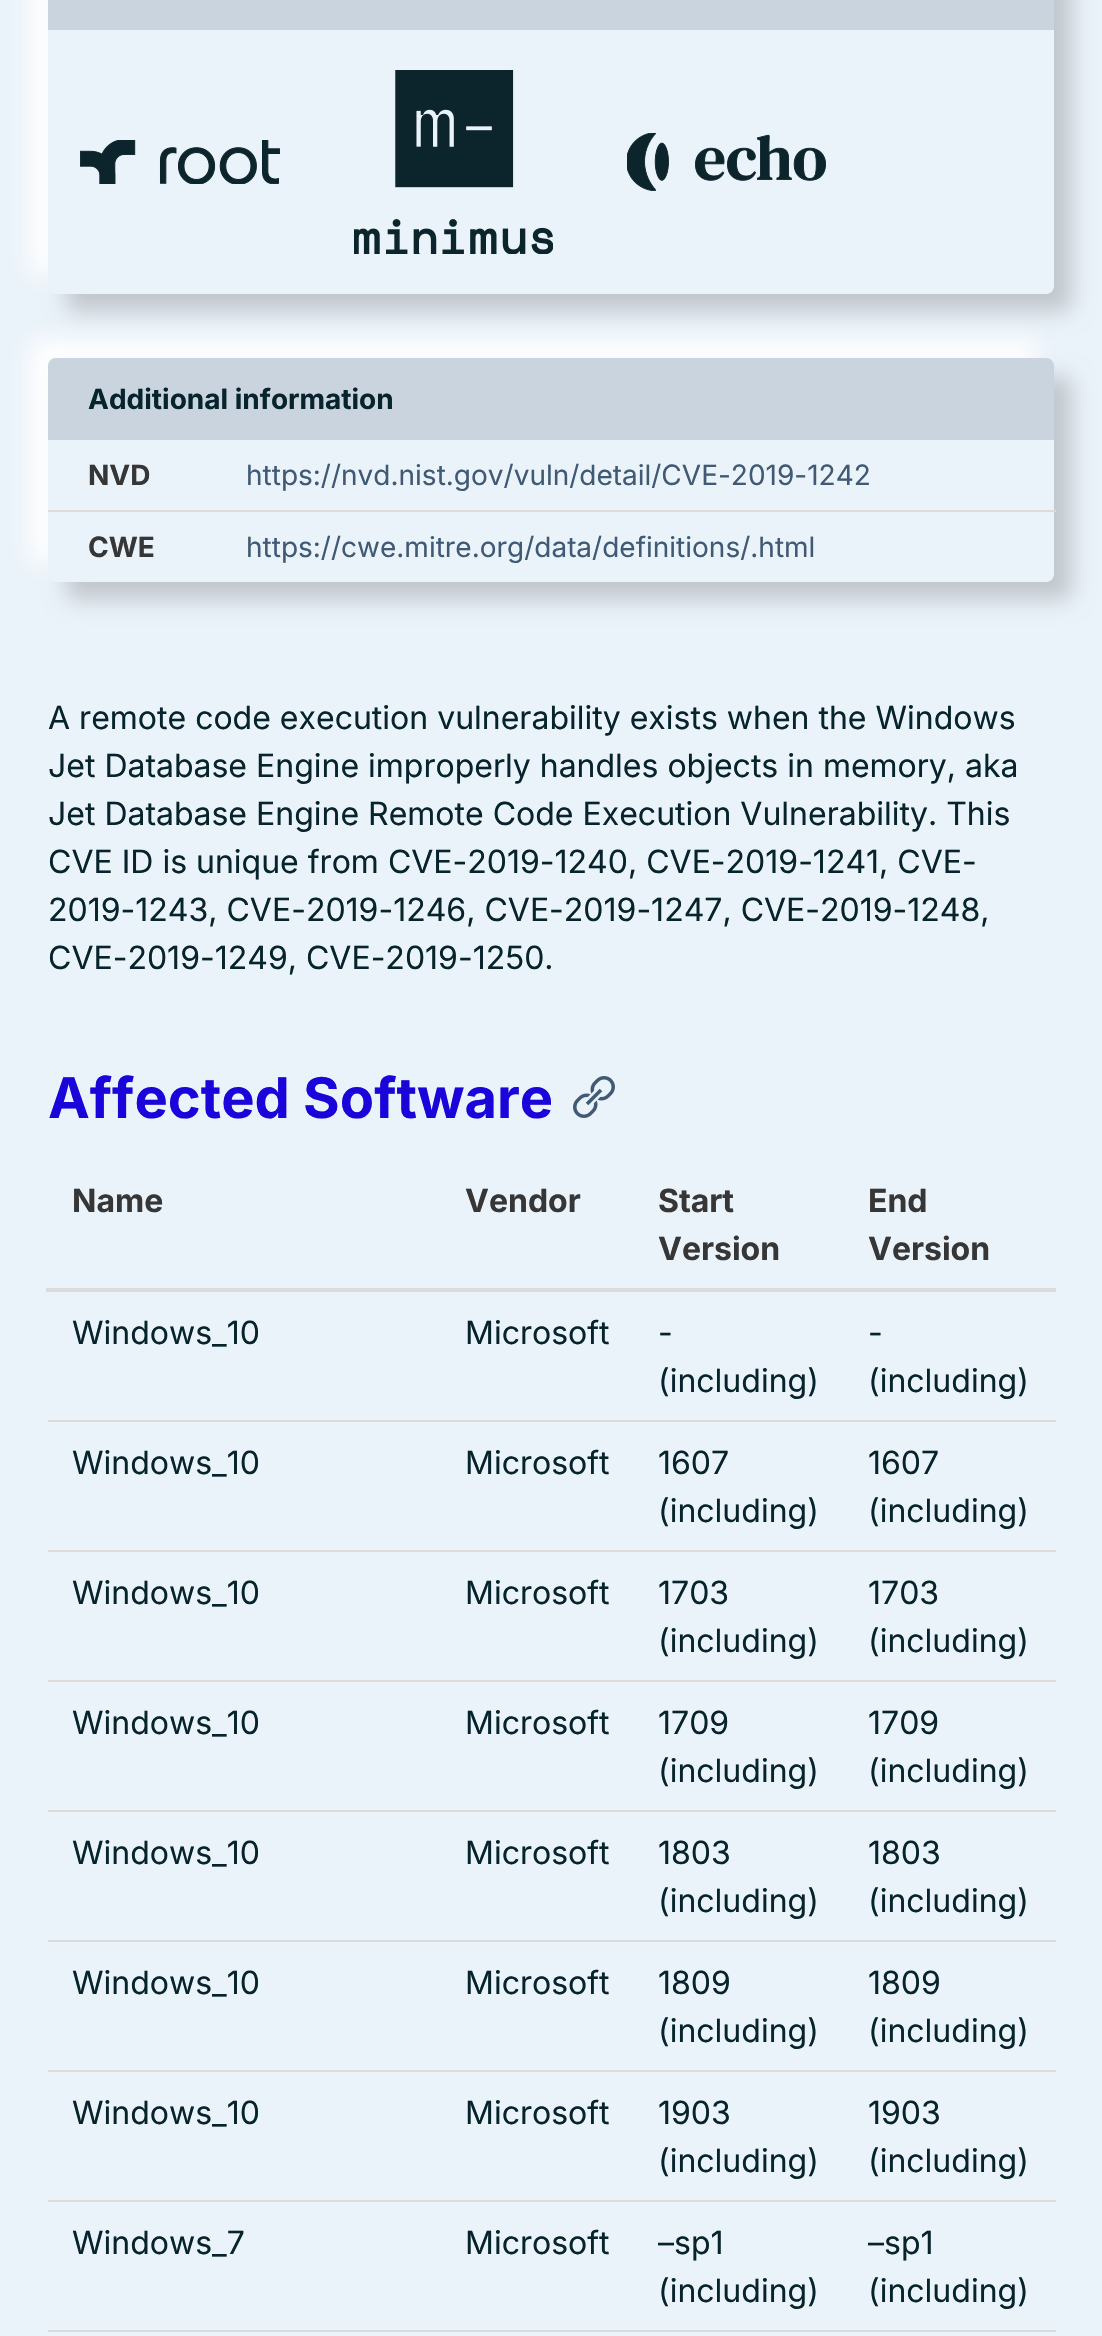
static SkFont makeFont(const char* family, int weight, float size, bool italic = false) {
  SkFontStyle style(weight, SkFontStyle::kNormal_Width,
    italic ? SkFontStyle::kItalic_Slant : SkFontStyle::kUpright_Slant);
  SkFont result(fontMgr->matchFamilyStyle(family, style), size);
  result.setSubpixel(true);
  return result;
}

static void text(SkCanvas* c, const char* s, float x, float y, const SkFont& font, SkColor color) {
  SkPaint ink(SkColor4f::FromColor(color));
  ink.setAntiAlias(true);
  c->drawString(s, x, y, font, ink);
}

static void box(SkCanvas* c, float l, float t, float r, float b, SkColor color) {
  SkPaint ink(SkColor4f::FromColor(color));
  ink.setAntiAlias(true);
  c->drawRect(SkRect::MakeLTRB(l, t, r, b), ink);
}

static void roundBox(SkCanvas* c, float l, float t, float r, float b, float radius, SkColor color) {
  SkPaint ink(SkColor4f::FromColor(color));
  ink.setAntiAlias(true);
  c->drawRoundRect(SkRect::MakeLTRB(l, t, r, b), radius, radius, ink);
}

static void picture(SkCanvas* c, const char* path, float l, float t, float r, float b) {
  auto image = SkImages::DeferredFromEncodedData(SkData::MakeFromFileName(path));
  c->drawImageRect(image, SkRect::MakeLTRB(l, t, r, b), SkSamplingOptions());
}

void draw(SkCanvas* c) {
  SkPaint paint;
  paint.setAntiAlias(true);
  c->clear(0xffebf3fa);
  paint.setColor(0xffffffff);
  paint.setMaskFilter(SkMaskFilter::MakeBlur(kNormal_SkBlurStyle, 11));
  c->drawRoundRect(SkRect::MakeLTRB(30, -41, 1036, 276), 8, 8, paint);
  paint.setMaskFilter(nullptr);
  paint.setColor(0xffc1c7cd);
  paint.setMaskFilter(SkMaskFilter::MakeBlur(kNormal_SkBlurStyle, 11));
  c->drawRoundRect(SkRect::MakeLTRB(66, -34, 1072, 312), 8, 8, paint);
  paint.setMaskFilter(nullptr);
  roundBox(c, 48, -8, 1054, 294, 8, 0xffebf3fa);
  box(c, 48, 0, 1054, 30, 0xffc9d4df);
  picture(c, "img_01.png", 80, 140, 280, 184);
  picture(c, "img_02.png", 354, 70, 553, 254);
  picture(c, "img_03.png", 627, 133, 826, 191);
  paint.setColor(0xffffffff);
  paint.setMaskFilter(SkMaskFilter::MakeBlur(kNormal_SkBlurStyle, 11));
  c->drawRoundRect(SkRect::MakeLTRB(30, 340, 1036, 564), 8, 8, paint);
  paint.setMaskFilter(nullptr);
  paint.setColor(0xffc1c7cd);
  paint.setMaskFilter(SkMaskFilter::MakeBlur(kNormal_SkBlurStyle, 11));
  c->drawRoundRect(SkRect::MakeLTRB(66, 376, 1072, 600), 8, 8, paint);
  paint.setMaskFilter(nullptr);
  roundBox(c, 48, 358, 1054, 582, 8, 0xffebf3fa);
  paint.setColor(0x33405a75);
  c->drawPath(SkPathBuilder().moveTo(56, 358).lineTo(1046, 358).cubicTo(1050.5f, 358, 1054, 361.5f, 1054, 366).lineTo(1054, 440).lineTo(48, 440).lineTo(48, 366).cubicTo(48, 361.5f, 51.5f, 358, 56, 358).close().detach(), paint);
  SkFont face1 = makeFont("Inter", 700, 28);
  text(c, "Additional information", 88, 409, face1, 0xff07242d);
  text(c, "NVD", 88, 485, face1, 0xff363636);
  box(c, 48, 510, 1056, 512, 0xffdbdbdb);
  SkFont face2 = makeFont("Inter", 400, 28);
  text(c, "https://nvd.nist.gov/vuln/detail/CVE-2019-1242", 246, 485, face2, 0xff405a75);
  text(c, "CWE", 88, 557, face1, 0xff363636);
  text(c, "https://cwe.mitre.org/data/definitions/.html", 246, 557, face2, 0xff405a75);
  SkFont face3 = makeFont("Inter", 400, 32);
  text(c, "A remote code execution vulnerability exists when the Windows", 48, 729, face3, 0xff07242d);
  text(c, "Jet Database Engine improperly handles objects in memory, aka", 48, 777, face3, 0xff07242d);
  text(c, "Jet Database Engine Remote Code Execution Vulnerability. This", 48, 825, face3, 0xff07242d);
  text(c, "CVE ID is unique from CVE-2019-1240, CVE-2019-1241, CVE-", 48, 873, face3, 0xff07242d);
  text(c, "2019-1243, CVE-2019-1246, CVE-2019-1247, CVE-2019-1248,", 48, 921, face3, 0xff07242d);
  text(c, "CVE-2019-1249, CVE-2019-1250.", 48, 969, face3, 0xff07242d);
  SkFont face4 = makeFont("Inter", 700, 56);
  text(c, "Affected Software", 48, 1118, face4, 0xff1904da);
  picture(c, "img_04.png", 573, 1076, 615, 1118);
  SkFont face5 = makeFont("Inter", 700, 32);
  text(c, "Name", 72, 1212, face5, 0xff363636);
  text(c, "Vendor", 465, 1212, face5, 0xff363636);
  text(c, "Start", 658, 1212, face5, 0xff363636);
  text(c, "Version", 658, 1260, face5, 0xff363636);
  box(c, 46, 1288, 1056, 1292, 0xffdbdbdb);
  text(c, "End", 868, 1212, face5, 0xff363636);
  text(c, "Version", 868, 1260, face5, 0xff363636);
  text(c, "Windows_10", 72, 1344, face3, 0xff07242d);
  text(c, "Microsoft", 465, 1344, face3, 0xff07242d);
  text(c, "-", 658, 1344, face3, 0xff07242d);
  text(c, "(including)", 658, 1392, face3, 0xff07242d);
  box(c, 48, 1420, 1056, 1422, 0xffdbdbdb);
  text(c, "-", 868, 1344, face3, 0xff07242d);
  text(c, "(including)", 868, 1392, face3, 0xff07242d);
  text(c, "Windows_10", 72, 1474, face3, 0xff07242d);
  text(c, "Microsoft", 465, 1474, face3, 0xff07242d);
  text(c, "1607", 658, 1474, face3, 0xff07242d);
  text(c, "(including)", 658, 1522, face3, 0xff07242d);
  box(c, 48, 1550, 1056, 1552, 0xffdbdbdb);
  text(c, "1607", 868, 1474, face3, 0xff07242d);
  text(c, "(including)", 868, 1522, face3, 0xff07242d);
  text(c, "Windows_10", 72, 1604, face3, 0xff07242d);
  text(c, "Microsoft", 465, 1604, face3, 0xff07242d);
  text(c, "1703", 658, 1604, face3, 0xff07242d);
  text(c, "(including)", 658, 1652, face3, 0xff07242d);
  box(c, 48, 1680, 1056, 1682, 0xffdbdbdb);
  text(c, "1703", 868, 1604, face3, 0xff07242d);
  text(c, "(including)", 868, 1652, face3, 0xff07242d);
  text(c, "Windows_10", 72, 1734, face3, 0xff07242d);
  text(c, "Microsoft", 465, 1734, face3, 0xff07242d);
  text(c, "1709", 658, 1734, face3, 0xff07242d);
  text(c, "(including)", 658, 1782, face3, 0xff07242d);
  box(c, 48, 1810, 1056, 1812, 0xffdbdbdb);
  text(c, "1709", 868, 1734, face3, 0xff07242d);
  text(c, "(including)", 868, 1782, face3, 0xff07242d);
  text(c, "Windows_10", 72, 1864, face3, 0xff07242d);
  text(c, "Microsoft", 465, 1864, face3, 0xff07242d);
  text(c, "1803", 658, 1864, face3, 0xff07242d);
  text(c, "(including)", 658, 1912, face3, 0xff07242d);
  box(c, 48, 1940, 1056, 1942, 0xffdbdbdb);
  text(c, "1803", 868, 1864, face3, 0xff07242d);
  text(c, "(including)", 868, 1912, face3, 0xff07242d);
  text(c, "Windows_10", 72, 1994, face3, 0xff07242d);
  text(c, "Microsoft", 465, 1994, face3, 0xff07242d);
  text(c, "1809", 658, 1994, face3, 0xff07242d);
  text(c, "(including)", 658, 2042, face3, 0xff07242d);
  box(c, 48, 2070, 1056, 2072, 0xffdbdbdb);
  text(c, "1809", 868, 1994, face3, 0xff07242d);
  text(c, "(including)", 868, 2042, face3, 0xff07242d);
  text(c, "Windows_10", 72, 2124, face3, 0xff07242d);
  text(c, "Microsoft", 465, 2124, face3, 0xff07242d);
  text(c, "1903", 658, 2124, face3, 0xff07242d);
  text(c, "(including)", 658, 2172, face3, 0xff07242d);
  box(c, 48, 2200, 1056, 2202, 0xffdbdbdb);
  text(c, "1903", 868, 2124, face3, 0xff07242d);
  text(c, "(including)", 868, 2172, face3, 0xff07242d);
  text(c, "Windows_7", 72, 2254, face3, 0xff07242d);
  text(c, "Microsoft", 465, 2254, face3, 0xff07242d);
  text(c, "–sp1", 658, 2254, face3, 0xff07242d);
  text(c, "(including)", 658, 2302, face3, 0xff07242d);
  box(c, 48, 2330, 1056, 2332, 0xffdbdbdb);
  text(c, "–sp1", 868, 2254, face3, 0xff07242d);
  text(c, "(including)", 868, 2302, face3, 0xff07242d);
}
